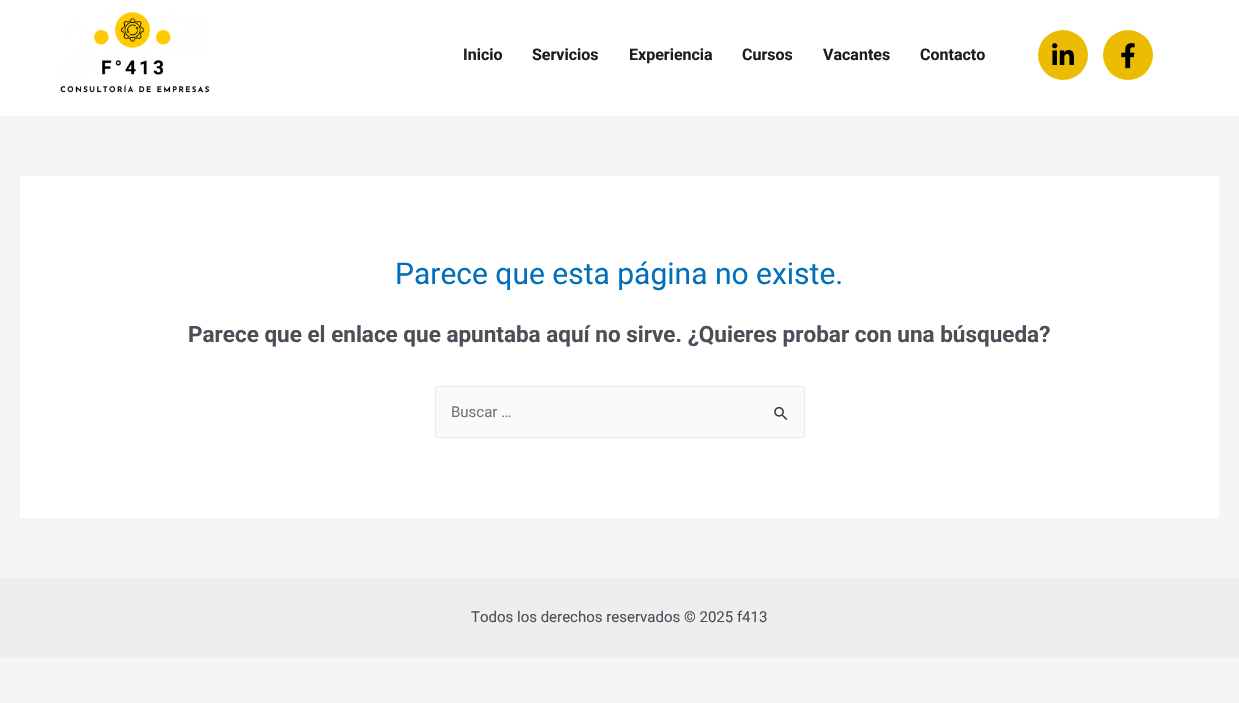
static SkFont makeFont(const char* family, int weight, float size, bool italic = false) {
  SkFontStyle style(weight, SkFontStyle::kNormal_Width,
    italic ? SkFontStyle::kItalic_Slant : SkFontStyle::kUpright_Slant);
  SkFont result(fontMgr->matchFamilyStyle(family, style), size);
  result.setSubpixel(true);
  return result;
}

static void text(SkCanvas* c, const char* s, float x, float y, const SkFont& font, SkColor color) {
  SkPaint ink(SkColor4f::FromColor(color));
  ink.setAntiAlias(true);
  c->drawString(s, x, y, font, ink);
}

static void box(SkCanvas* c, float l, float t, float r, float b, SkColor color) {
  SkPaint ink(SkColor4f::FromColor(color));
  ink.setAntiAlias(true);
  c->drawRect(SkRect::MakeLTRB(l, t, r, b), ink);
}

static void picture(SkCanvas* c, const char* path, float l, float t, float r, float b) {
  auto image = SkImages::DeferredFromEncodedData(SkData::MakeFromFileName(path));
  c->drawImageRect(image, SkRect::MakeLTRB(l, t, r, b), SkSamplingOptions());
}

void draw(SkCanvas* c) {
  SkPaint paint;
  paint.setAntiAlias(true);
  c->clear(0xfff5f5f5);
  box(c, 0, 0, 1239, 116, 0xffffffff);
  picture(c, "img_01.png", 60, 12, 210, 93);
  SkFont face1 = makeFont("Roboto", 700, 16);
  text(c, "Inicio", 463, 60, face1, 0xff1d1d1d);
  text(c, "Servicios", 532, 60, face1, 0xff1d1d1d);
  text(c, "Experiencia", 629, 60, face1, 0xff1d1d1d);
  text(c, "Cursos", 742, 60, face1, 0xff1d1d1d);
  text(c, "Vacantes", 823, 60, face1, 0xff1d1d1d);
  text(c, "Contacto", 920, 60, face1, 0xff1d1d1d);
  paint.setColor(0xffecbc04);
  c->drawCircle(1063, 55, 25, paint);
  picture(c, "img_02.png", 1052, 43, 1074, 65);
  c->drawCircle(1128, 55, 25, paint);
  picture(c, "img_03.png", 1121, 43, 1135, 69);
  box(c, 20, 176, 1219, 518, 0xffffffff);
  SkFont face2 = makeFont("Roboto", 400, 30);
  text(c, "Parece que esta página no existe.", 395, 284, face2, 0xff0170b9);
  SkFont face3 = makeFont("Roboto", 700, 22.5f);
  text(c, "Parece que el enlace que apuntaba aquí no sirve. ¿Quieres probar con una búsqueda?", 188, 342, face3, 0xff4b4f58);
  paint.setColor(0xfffafafa);
  c->drawRoundRect(SkRect::MakeLTRB(435.5f, 386.5f, 804.5f, 437.5f), 1.5f, 1.5f, paint);
  paint.setStyle(SkPaint::kStroke_Style);
  paint.setStrokeWidth(1);
  paint.setColor(0xffeaeaea);
  c->drawRoundRect(SkRect::MakeLTRB(435.5f, 386.5f, 804.5f, 437.5f), 1.5f, 1.5f, paint);
  SkFont face4 = makeFont("Roboto", 400, 15);
  text(c, "Buscar …", 451, 417, face4, 0xff757575);
  picture(c, "img_04.png", 774, 406, 788, 420);
  box(c, 0, 578, 1239, 658, 0xffeeeeee);
  text(c, "Todos los derechos reservados © 2025 f413", 471, 622, face4, 0xff4b4f58);
}
